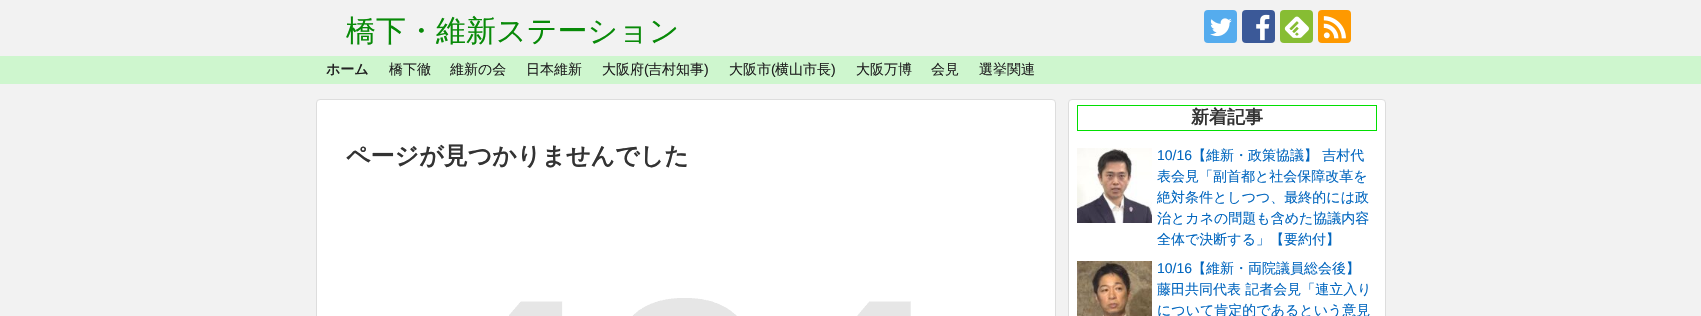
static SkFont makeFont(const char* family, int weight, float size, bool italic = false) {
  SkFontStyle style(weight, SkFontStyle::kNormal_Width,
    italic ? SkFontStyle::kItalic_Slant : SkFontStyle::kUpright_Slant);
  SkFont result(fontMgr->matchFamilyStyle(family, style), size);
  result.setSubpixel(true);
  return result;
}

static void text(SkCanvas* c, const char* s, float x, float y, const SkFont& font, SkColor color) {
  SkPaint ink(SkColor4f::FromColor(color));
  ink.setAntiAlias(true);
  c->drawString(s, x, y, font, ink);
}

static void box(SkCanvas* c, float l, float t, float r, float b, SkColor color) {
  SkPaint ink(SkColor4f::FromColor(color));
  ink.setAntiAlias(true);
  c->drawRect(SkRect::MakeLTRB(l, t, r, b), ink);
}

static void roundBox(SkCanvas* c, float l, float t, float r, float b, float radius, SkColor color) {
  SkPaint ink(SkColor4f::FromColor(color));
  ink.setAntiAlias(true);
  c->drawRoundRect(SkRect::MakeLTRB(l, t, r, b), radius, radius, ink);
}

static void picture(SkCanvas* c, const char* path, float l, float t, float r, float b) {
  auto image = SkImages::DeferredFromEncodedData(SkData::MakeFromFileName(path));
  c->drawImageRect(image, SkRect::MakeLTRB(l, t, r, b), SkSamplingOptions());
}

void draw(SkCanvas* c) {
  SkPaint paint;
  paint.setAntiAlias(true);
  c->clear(0xfff2f2f2);
  SkFont face1 = makeFont("WenQuanYi Zen Hei", 500, 30);
  text(c, "橋下・維新ステーション", 346, 41, face1, 0xff088a08);
  roundBox(c, 1204, 10, 1237, 43, 4, 0xff55acee);
  picture(c, "img_01.png", 1210, 18, 1232, 37);
  roundBox(c, 1242, 10, 1275, 43, 4, 0xff3b5998);
  picture(c, "img_02.png", 1256, 14, 1270, 41);
  roundBox(c, 1280, 10, 1313, 43, 4, 0xff87bd33);
  picture(c, "img_03.png", 1284, 16, 1309, 38);
  roundBox(c, 1318, 10, 1351, 43, 4, 0xfffe9900);
  picture(c, "img_04.png", 1323, 16, 1346, 39);
  box(c, 0, 56, 1701, 84, 0xffcef6ce);
  SkFont face2 = makeFont("WenQuanYi Zen Hei", 700, 14);
  text(c, "ホーム", 326, 74, face2, 0xff222222);
  SkFont face3 = makeFont("WenQuanYi Zen Hei", 500, 14);
  text(c, "橋下徹", 389, 74, face3, 0xff222222);
  text(c, "維新の会", 450, 74, face3, 0xff222222);
  text(c, "日本維新", 526, 74, face3, 0xff222222);
  text(c, "大阪府", 602, 74, face3, 0xff222222);
  SkFont face4 = makeFont("Liberation Sans", 400, 14);
  text(c, "(", 644, 74, face4, 0xff222222);
  text(c, "吉村知事", 648, 74, face3, 0xff222222);
  text(c, ")", 704, 74, face4, 0xff222222);
  text(c, "大阪市", 729, 74, face3, 0xff222222);
  text(c, "(", 771, 74, face4, 0xff222222);
  text(c, "横山市長", 775, 74, face3, 0xff222222);
  text(c, ")", 831, 74, face4, 0xff222222);
  text(c, "大阪万博", 856, 74, face3, 0xff222222);
  text(c, "会見", 931, 74, face3, 0xff222222);
  text(c, "選挙関連", 979, 74, face3, 0xff222222);
  paint.setColor(0xffffffff);
  c->drawRoundRect(SkRect::MakeLTRB(316.5f, 99.5f, 1055.5f, 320.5f), 3.5f, 3.5f, paint);
  paint.setStyle(SkPaint::kStroke_Style);
  paint.setStrokeWidth(1);
  paint.setColor(0xffdddddd);
  c->drawRoundRect(SkRect::MakeLTRB(316.5f, 99.5f, 1055.5f, 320.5f), 3.5f, 3.5f, paint);
  SkFont face5 = makeFont("WenQuanYi Zen Hei", 700, 24);
  text(c, "ページが見つかりませんでした", 346, 164, face5, 0xff333333);
  picture(c, "img_05.png", 509, 298, 911, 316);
  paint.setStyle(SkPaint::kFill_Style);
  paint.setColor(0xffffffff);
  c->drawRoundRect(SkRect::MakeLTRB(1068.5f, 99.5f, 1385.5f, 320.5f), 3.5f, 3.5f, paint);
  paint.setStyle(SkPaint::kStroke_Style);
  paint.setColor(0xffdddddd);
  c->drawRoundRect(SkRect::MakeLTRB(1068.5f, 99.5f, 1385.5f, 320.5f), 3.5f, 3.5f, paint);
  paint.setColor(0xff01df01);
  c->drawRect(SkRect::MakeLTRB(1077.5f, 105.5f, 1376.5f, 130.5f), paint);
  SkFont face6 = makeFont("WenQuanYi Zen Hei", 700, 18);
  text(c, "新着記事", 1191, 123, face6, 0xff333333);
  picture(c, "img_06.png", 1077, 148, 1152, 223);
  text(c, "10/16", 1157, 160, face4, 0xff0367bf);
  text(c, "【維新・政策協議】 吉村代", 1192, 160, face3, 0xff0367bf);
  text(c, "表会見「副首都と社会保障改革を", 1157, 181, face3, 0xff0367bf);
  text(c, "絶対条件としつつ、最終的には政", 1157, 202, face3, 0xff0367bf);
  text(c, "治とカネの問題も含めた協議内容", 1157, 223, face3, 0xff0367bf);
  text(c, "全体で決断する」【要約付】", 1157, 244, face3, 0xff0367bf);
  picture(c, "img_07.png", 1077, 261, 1152, 316);
  text(c, "10/16", 1157, 273, face4, 0xff0367bf);
  text(c, "【維新・両院議員総会後】", 1192, 273, face3, 0xff0367bf);
  text(c, "藤田共同代表 記者会見「連立入り", 1157, 294, face3, 0xff0367bf);
  text(c, "について肯定的であるという意見", 1157, 315, face3, 0xff0367bf);
}
